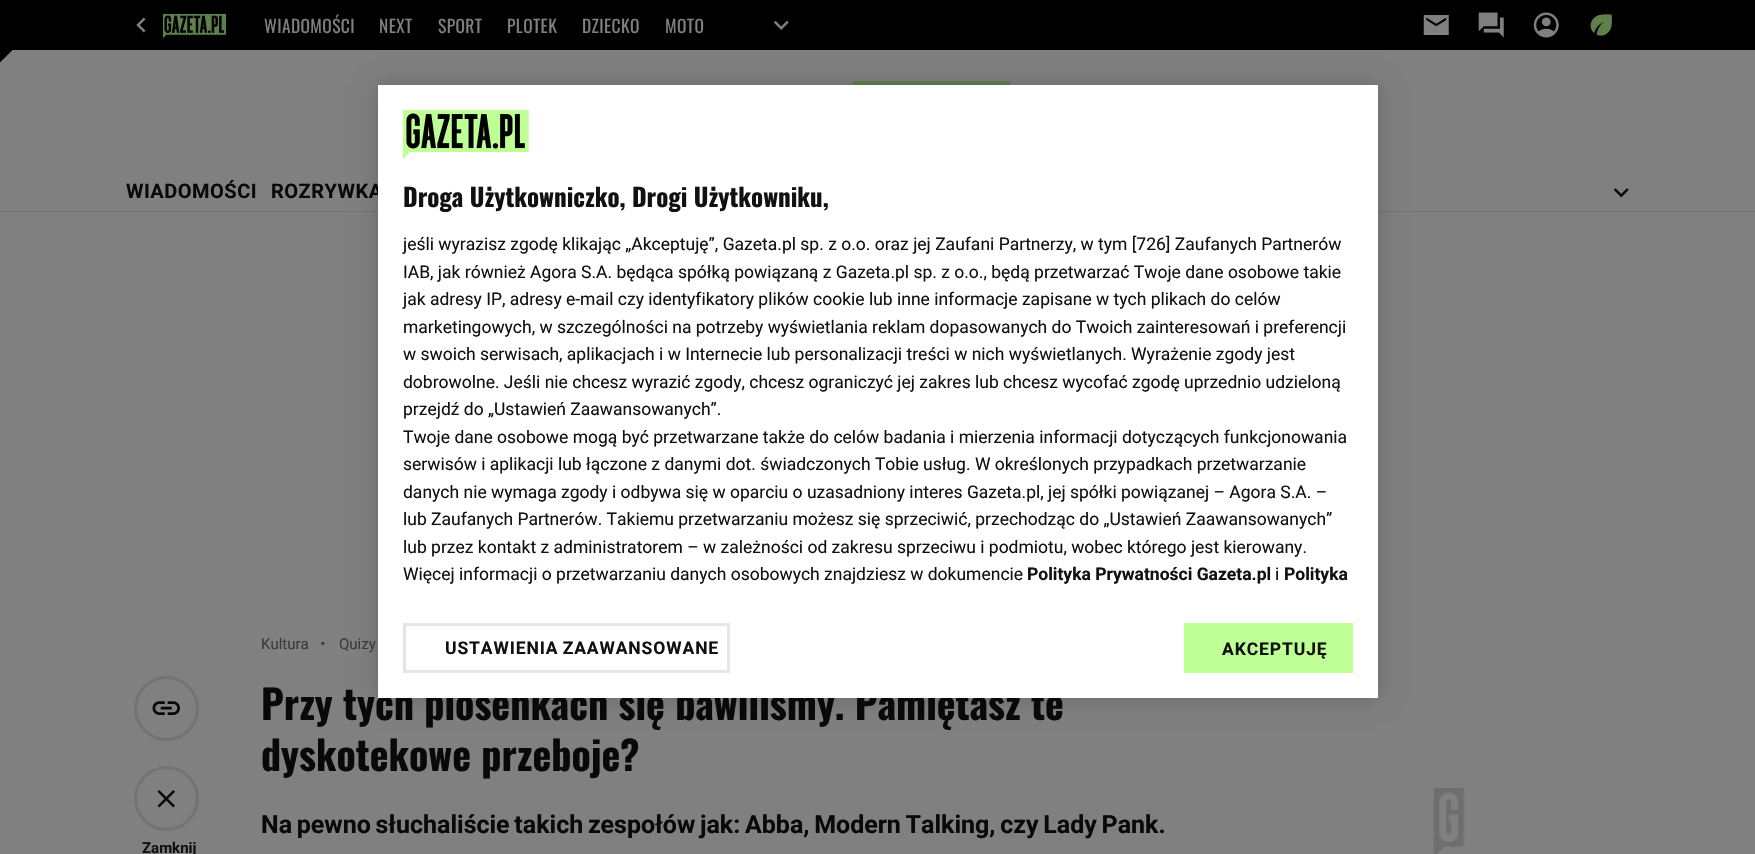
static SkFont makeFont(const char* family, int weight, float size, bool italic = false) {
  SkFontStyle style(weight, SkFontStyle::kNormal_Width,
    italic ? SkFontStyle::kItalic_Slant : SkFontStyle::kUpright_Slant);
  SkFont result(fontMgr->matchFamilyStyle(family, style), size);
  result.setSubpixel(true);
  return result;
}

static void text(SkCanvas* c, const char* s, float x, float y, const SkFont& font, SkColor color) {
  SkPaint ink(SkColor4f::FromColor(color));
  ink.setAntiAlias(true);
  c->drawString(s, x, y, font, ink);
}

static void spacedText(SkCanvas* c, const char* s, float x, float y, const SkFont& font, const SkPaint& ink, float letter, float word) {
  std::vector<SkGlyphID> glyphs(font.countText(s, strlen(s), SkTextEncoding::kUTF8));
  std::vector<float> xs(glyphs.size());
  font.textToGlyphs(s, strlen(s), SkTextEncoding::kUTF8, glyphs);
  font.getXPos(glyphs, xs, x);
  float extra = 0;
  for (size_t i = 0; i < glyphs.size(); i++) {
    xs[i] += extra;
    extra += letter + word * (glyphs[i] == font.unicharToGlyph(' '));
  }
  c->drawTextBlob(SkTextBlob::MakeFromPosHGlyphs(glyphs, xs, y, font), 0, 0, ink);
}

static void box(SkCanvas* c, float l, float t, float r, float b, SkColor color) {
  SkPaint ink(SkColor4f::FromColor(color));
  ink.setAntiAlias(true);
  c->drawRect(SkRect::MakeLTRB(l, t, r, b), ink);
}

static void picture(SkCanvas* c, const char* path, float l, float t, float r, float b) {
  auto image = SkImages::DeferredFromEncodedData(SkData::MakeFromFileName(path));
  c->drawImageRect(image, SkRect::MakeLTRB(l, t, r, b), SkSamplingOptions());
}

void draw(SkCanvas* c) {
  SkPaint paint;
  paint.setAntiAlias(true);
  c->clear(0xff808080);
  box(c, 0, 0, 1755, 50, 0xff000000);
  picture(c, "img_01.png", 136, 17, 146, 33);
  picture(c, "img_02.png", 163, 14, 226, 39);
  SkFont face1 = makeFont("Oswald", 400, 17.5f);
  paint.setColor(0xff808080);
  spacedText(c, "WIADOMOŚCI", 264, 33, face1, paint, 0.4f, 0);
  spacedText(c, "NEXT", 379, 33, face1, paint, 0.4f, 0);
  spacedText(c, "SPORT", 438, 33, face1, paint, 0.4f, 0);
  spacedText(c, "PLOTEK", 507, 33, face1, paint, 0.4f, 0);
  spacedText(c, "DZIECKO", 582, 33, face1, paint, 0.4f, 0);
  spacedText(c, "MOTO", 665, 33, face1, paint, 0.4f, 0);
  picture(c, "img_03.png", 773, 20, 789, 30);
  picture(c, "img_04.png", 1423, 15, 1449, 35);
  picture(c, "img_05.png", 1478, 12, 1504, 38);
  picture(c, "img_06.png", 1533, 12, 1559, 38);
  picture(c, "img_07.png", 1590, 14, 1612, 36);
  paint.setColor(0xff000000);
  c->drawPath(SkPathBuilder().moveTo(0, 50).lineTo(12.5f, 50).lineTo(0, 62.5f).close().detach(), paint);
  box(c, 0, 211, 1755, 212, 0xff737373);
  picture(c, "img_08.png", 853, 81, 1010, 85);
  SkFont face2 = makeFont("Roboto", 700, 20);
  paint.setColor(0xff090909);
  spacedText(c, "WIADOMOŚCI", 126, 198, face2, paint, 0.5f, 0);
  spacedText(c, "ROZRYWKA", 271, 198, face2, paint, 0.5f, 0);
  picture(c, "img_09.png", 1613, 188, 1629, 198);
  paint.setColor(0x33000000);
  paint.setMaskFilter(SkMaskFilter::MakeBlur(kNormal_SkBlurStyle, 11));
  c->drawRect(SkRect::MakeLTRB(378, 85, 1378, 698), paint);
  paint.setMaskFilter(nullptr);
  SkFont face3 = makeFont("Oswald", 700, 40);
  text(c, "Przy tych piosenkach się bawiliśmy. Pamiętasz te", 261, 720, face3, 0xff090909);
  box(c, 378, 85, 1378, 698, 0xffffffff);
  picture(c, "img_10.png", 403, 110, 529, 160);
  SkFont face4 = makeFont("Oswald", 700, 25);
  text(c, "Droga Użytkowniczko, Drogi Użytkowniku,", 403, 207, face4, 0xff111111);
  SkFont face5 = makeFont("Roboto", 400, 17.5f);
  text(c, "jeśli wyrazisz zgodę klikając „Akceptuję”, Gazeta.pl sp. z o.o. oraz jej Zaufani Partnerzy, w tym [726] Zaufanych Partnerów", 403, 250, face5, 0xff111111);
  text(c, "IAB, jak również Agora S.A. będąca spółką powiązaną z Gazeta.pl sp. z o.o., będą przetwarzać Twoje dane osobowe takie", 403, 278, face5, 0xff111111);
  text(c, "jak adresy IP, adresy e-mail czy identyfikatory plików cookie lub inne informacje zapisane w tych plikach do celów", 403, 305, face5, 0xff111111);
  text(c, "marketingowych, w szczególności na potrzeby wyświetlania reklam dopasowanych do Twoich zainteresowań i preferencji", 403, 333, face5, 0xff111111);
  text(c, "w swoich serwisach, aplikacjach i w Internecie lub personalizacji treści w nich wyświetlanych. Wyrażenie zgody jest", 403, 360, face5, 0xff111111);
  text(c, "dobrowolne. Jeśli nie chcesz wyrazić zgody, chcesz ograniczyć jej zakres lub chcesz wycofać zgodę uprzednio udzieloną", 403, 388, face5, 0xff111111);
  text(c, "przejdź do „Ustawień Zaawansowanych”.", 403, 415, face5, 0xff111111);
  text(c, "Twoje dane osobowe mogą być przetwarzane także do celów badania i mierzenia informacji dotyczących funkcjonowania", 403, 443, face5, 0xff111111);
  text(c, "serwisów i aplikacji lub łączone z danymi dot. świadczonych Tobie usług. W określonych przypadkach przetwarzanie", 403, 470, face5, 0xff111111);
  text(c, "danych nie wymaga zgody i odbywa się w oparciu o uzasadniony interes Gazeta.pl, jej spółki powiązanej – Agora S.A. –", 403, 498, face5, 0xff111111);
  text(c, "lub Zaufanych Partnerów. Takiemu przetwarzaniu możesz się sprzeciwić, przechodząc do „Ustawień Zaawansowanych”", 403, 525, face5, 0xff111111);
  text(c, "lub przez kontakt z administratorem – w zależności od zakresu sprzeciwu i podmiotu, wobec którego jest kierowany.", 403, 553, face5, 0xff111111);
  text(c, "Więcej informacji o przetwarzaniu danych osobowych znajdziesz w dokumencie", 403, 580, face5, 0xff111111);
  SkFont face6 = makeFont("Roboto", 700, 17.5f);
  text(c, "Polityka Prywatności Gazeta.pl", 1027, 580, face6, 0xff111111);
  text(c, "i", 1275, 580, face5, 0xff111111);
  text(c, "Polityka", 1284, 580, face6, 0xff111111);
  paint.setStyle(SkPaint::kStroke_Style);
  paint.setStrokeWidth(3);
  paint.setColor(0xffe5e5e5);
  c->drawRect(SkRect::MakeLTRB(404.5f, 624.5f, 728.5f, 671.5f), paint);
  paint.setStyle(SkPaint::kFill_Style);
  paint.setColor(0xff111111);
  spacedText(c, "USTAWIENIA ZAAWANSOWANE", 445, 654, face6, paint, 0.9f, -1);
  box(c, 1184, 623, 1353, 673, 0xffbeff96);
  spacedText(c, "AKCEPTUJĘ", 1222, 655, face6, paint, 0.9f, 0);
  SkFont face7 = makeFont("Roboto", 400, 15);
  text(c, "Kultura", 261, 649, face7, 0xff3b3b3b);
  SkFont face8 = makeFont("Roboto", 400, 30);
  text(c, "·", 319, 654, face8, 0xff3b3b3b);
  text(c, "Quizy", 339, 649, face7, 0xff3b3b3b);
  text(c, "dyskotekowe przeboje?", 261, 771, face3, 0xff090909);
  SkFont face9 = makeFont("Roboto", 700, 25);
  paint.setColor(0xff090909);
  spacedText(c, "Na pewno słuchaliście takich zespołów jak: Abba, Modern Talking, czy Lady Pank.", 261, 833, face9, paint, 0, -1.5f);
  picture(c, "img_11.png", 1433, 788, 1465, 854);
  paint.setStyle(SkPaint::kStroke_Style);
  paint.setColor(0xff737373);
  c->drawCircle(166.5f, 708.5f, 31, paint);
  picture(c, "img_12.png", 152, 701, 180, 715);
  c->drawCircle(166.5f, 798.5f, 31, paint);
  picture(c, "img_13.png", 157, 790, 175, 808);
  SkFont face10 = makeFont("Roboto", 700, 15);
  text(c, "Zamknij", 142, 853, face10, 0xff111111);
}
